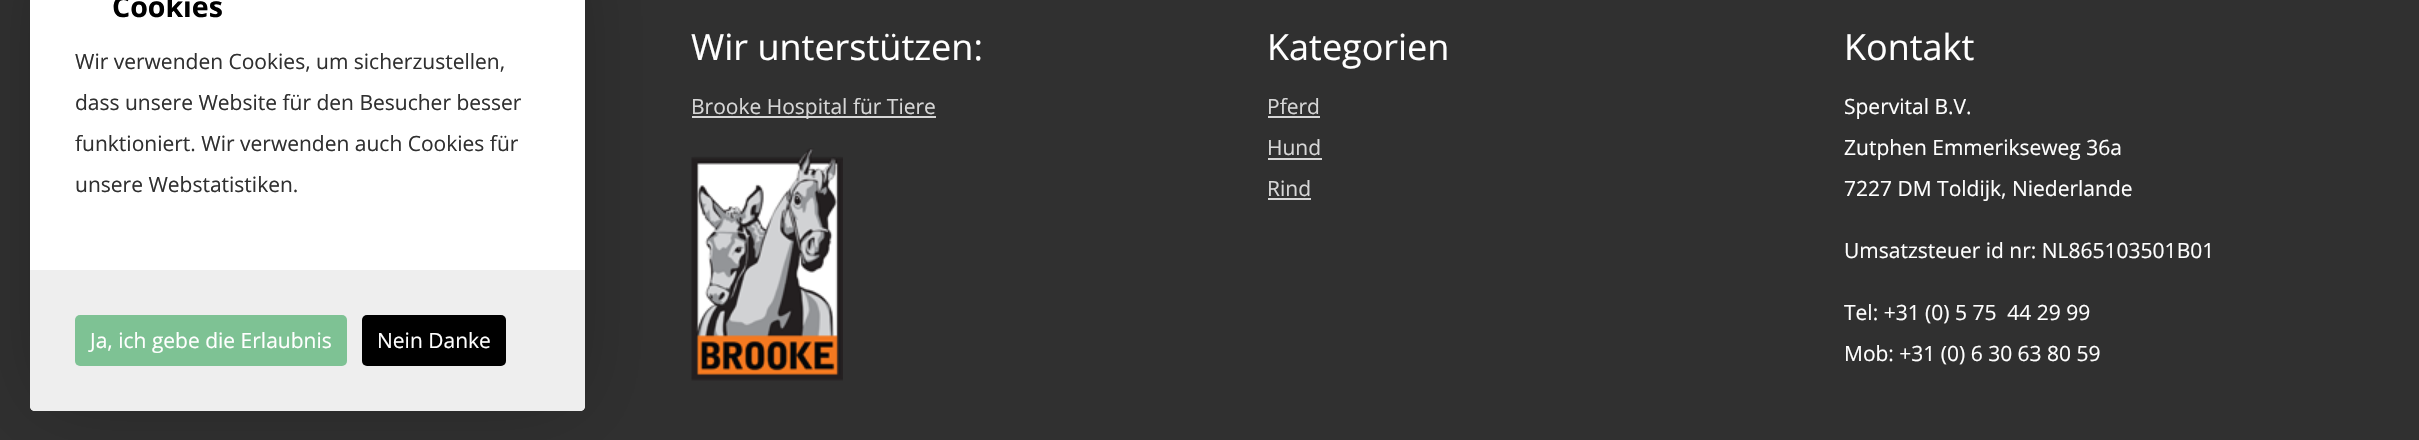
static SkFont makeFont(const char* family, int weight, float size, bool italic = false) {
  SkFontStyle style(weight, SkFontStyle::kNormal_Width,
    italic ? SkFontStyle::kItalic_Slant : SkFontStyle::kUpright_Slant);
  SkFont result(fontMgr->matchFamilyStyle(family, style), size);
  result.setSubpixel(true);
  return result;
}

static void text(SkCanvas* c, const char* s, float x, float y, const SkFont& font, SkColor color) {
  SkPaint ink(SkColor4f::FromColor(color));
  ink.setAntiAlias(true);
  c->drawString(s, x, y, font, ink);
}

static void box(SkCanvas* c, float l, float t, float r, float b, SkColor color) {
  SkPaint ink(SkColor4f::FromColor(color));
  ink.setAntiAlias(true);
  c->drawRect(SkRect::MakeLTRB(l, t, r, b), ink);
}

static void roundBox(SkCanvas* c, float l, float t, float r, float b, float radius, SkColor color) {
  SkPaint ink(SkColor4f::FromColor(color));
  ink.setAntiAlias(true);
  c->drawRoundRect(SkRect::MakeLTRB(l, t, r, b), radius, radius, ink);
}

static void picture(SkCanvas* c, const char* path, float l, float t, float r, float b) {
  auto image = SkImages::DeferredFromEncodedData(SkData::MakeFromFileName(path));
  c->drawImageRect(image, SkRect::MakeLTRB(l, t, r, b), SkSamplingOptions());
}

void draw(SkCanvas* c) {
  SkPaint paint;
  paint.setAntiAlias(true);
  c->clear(0xff303030);
  paint.setColor(0x40000000);
  paint.setMaskFilter(SkMaskFilter::MakeBlur(kNormal_SkBlurStyle, 37.5f));
  c->drawRect(SkRect::MakeLTRB(42, -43, 573, 399), paint);
  paint.setMaskFilter(nullptr);
  roundBox(c, 30, -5, 585, 411, 5, 0xffffffff);
  SkFont face1 = makeFont("Open Sans", 700, 28.5f);
  text(c, "Cookies", 112, 17, face1, 0xff000000);
  SkFont face2 = makeFont("Open Sans", 400, 21);
  text(c, "Wir verwenden Cookies, um sicherzustellen,", 75, 69, face2, 0xff303030);
  text(c, "dass unsere Website für den Besucher besser", 75, 110, face2, 0xff303030);
  text(c, "funktioniert. Wir verwenden auch Cookies für", 75, 151, face2, 0xff303030);
  text(c, "unsere Webstatistiken.", 75, 192, face2, 0xff303030);
  paint.setColor(0xffeeeeee);
  c->drawPath(SkPathBuilder().moveTo(30, 270).lineTo(585, 270).lineTo(585, 406).cubicTo(585, 409, 583, 411, 580, 411).lineTo(35, 411).cubicTo(32, 411, 30, 409, 30, 406).close().detach(), paint);
  roundBox(c, 75, 315, 347, 366, 5, 0xff7ec294);
  text(c, "Ja, ich gebe die Erlaubnis", 90, 348, face2, 0xffffffff);
  roundBox(c, 362, 315, 506, 366, 5, 0xff000000);
  text(c, "Nein Danke", 377, 348, face2, 0xffffffff);
  SkFont face3 = makeFont("Open Sans", 400, 36);
  text(c, "Wir unterstützen:", 691, 60, face3, 0xffffffff);
  box(c, 692, 116, 936, 118, 0xffd6d6d6);
  text(c, "Brooke Hospital für Tiere", 691, 114, face2, 0xffd6d6d6);
  picture(c, "img_01.png", 691, 148, 843, 381);
  text(c, "Kategorien", 1267, 60, face3, 0xffffffff);
  text(c, "Pferd", 1267, 114, face2, 0xffd6d6d6);
  box(c, 1268, 116, 1320, 118, 0xffd6d6d6);
  text(c, "Hund", 1267, 155, face2, 0xffd6d6d6);
  box(c, 1268, 158, 1322, 160, 0xffd6d6d6);
  text(c, "Rind", 1267, 196, face2, 0xffd6d6d6);
  box(c, 1268, 198, 1311, 200, 0xffd6d6d6);
  text(c, "Kontakt", 1844, 60, face3, 0xffffffff);
  text(c, "Spervital B.V.", 1844, 114, face2, 0xffffffff);
  text(c, "Zutphen Emmerikseweg 36a", 1844, 155, face2, 0xffffffff);
  text(c, "7227 DM Toldijk, Niederlande", 1844, 196, face2, 0xffffffff);
  text(c, "Umsatzsteuer id nr: NL865103501B01", 1844, 258, face2, 0xffffffff);
  text(c, "Tel: +31 (0) 5 75  44 29 99", 1844, 320, face2, 0xffffffff);
  text(c, "Mob: +31 (0) 6 30 63 80 59", 1844, 361, face2, 0xffffffff);
}
